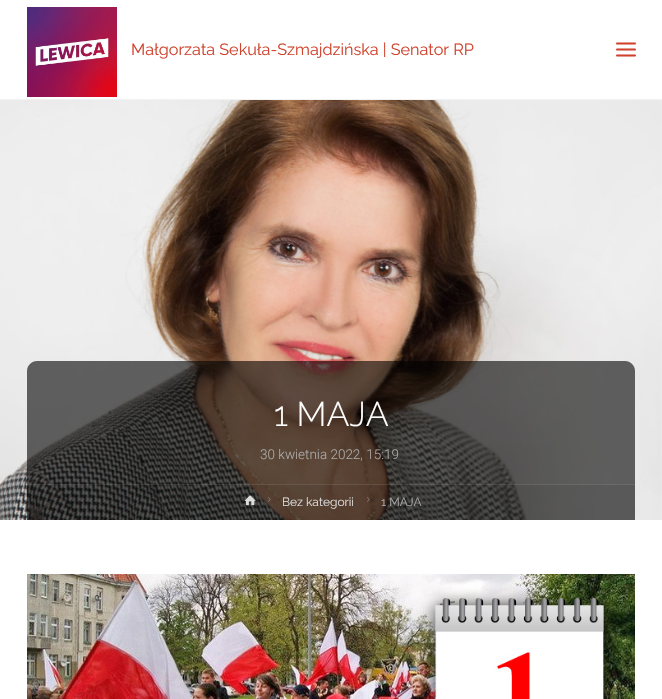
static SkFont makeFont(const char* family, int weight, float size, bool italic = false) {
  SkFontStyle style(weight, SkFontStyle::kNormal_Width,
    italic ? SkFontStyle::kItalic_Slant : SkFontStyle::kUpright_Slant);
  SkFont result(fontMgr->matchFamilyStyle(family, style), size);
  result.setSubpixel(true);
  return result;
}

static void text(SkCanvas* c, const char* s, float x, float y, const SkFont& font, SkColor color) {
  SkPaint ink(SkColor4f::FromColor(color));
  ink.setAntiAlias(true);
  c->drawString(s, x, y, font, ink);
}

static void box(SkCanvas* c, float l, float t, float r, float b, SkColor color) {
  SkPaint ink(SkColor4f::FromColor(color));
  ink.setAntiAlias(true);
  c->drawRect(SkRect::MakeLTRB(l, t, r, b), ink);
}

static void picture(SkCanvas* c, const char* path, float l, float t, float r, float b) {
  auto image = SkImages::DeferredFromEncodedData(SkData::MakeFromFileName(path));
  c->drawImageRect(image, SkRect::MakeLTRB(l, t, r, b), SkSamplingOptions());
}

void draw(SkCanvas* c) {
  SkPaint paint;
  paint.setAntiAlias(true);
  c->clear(0xffffffff);
  box(c, 0, 99, 662, 100, 0xfff2f2f2);
  picture(c, "img_01.png", 27, 7, 117, 97);
  SkFont face1 = makeFont("Raleway", 400, 16.2f);
  text(c, "Małgorzata Sekuła-Szmajdzińska | Senator RP", 131, 55, face1, 0xffd0422c);
  picture(c, "img_02.png", 616, 42, 636, 57);
  picture(c, "img_03.png", 0, 100, 662, 520);
  paint.setColor(0x99000000);
  c->drawPath(SkPathBuilder().moveTo(37, 361).lineTo(625, 361).cubicTo(630.5f, 361, 635, 365.5f, 635, 371).lineTo(635, 520).lineTo(27, 520).lineTo(27, 371).cubicTo(27, 365.5f, 31.5f, 361, 37, 361).close().detach(), paint);
  SkFont face2 = makeFont("Raleway", 300, 34);
  text(c, "1 MAJA", 274, 426, face2, 0xffffffff);
  SkFont face3 = makeFont("Roboto", 300, 13.5f);
  text(c, "30 kwietnia 2022, 15:19", 260, 459, face3, 0xffababab);
  box(c, 27, 484, 635, 520, 0x0d000000);
  box(c, 27, 484, 635, 485, 0x1affffff);
  picture(c, "img_04.png", 244, 495, 256, 506);
  picture(c, "img_05.png", 268, 497, 271, 502);
  SkFont face4 = makeFont("Raleway", 400, 12);
  text(c, "Bez kategorii", 282, 506, face4, 0xffdddddd);
  picture(c, "img_06.png", 367, 497, 370, 502);
  text(c, "1 MAJA", 381, 506, face4, 0xffababab);
  picture(c, "img_07.png", 27, 574, 635, 699);
}
